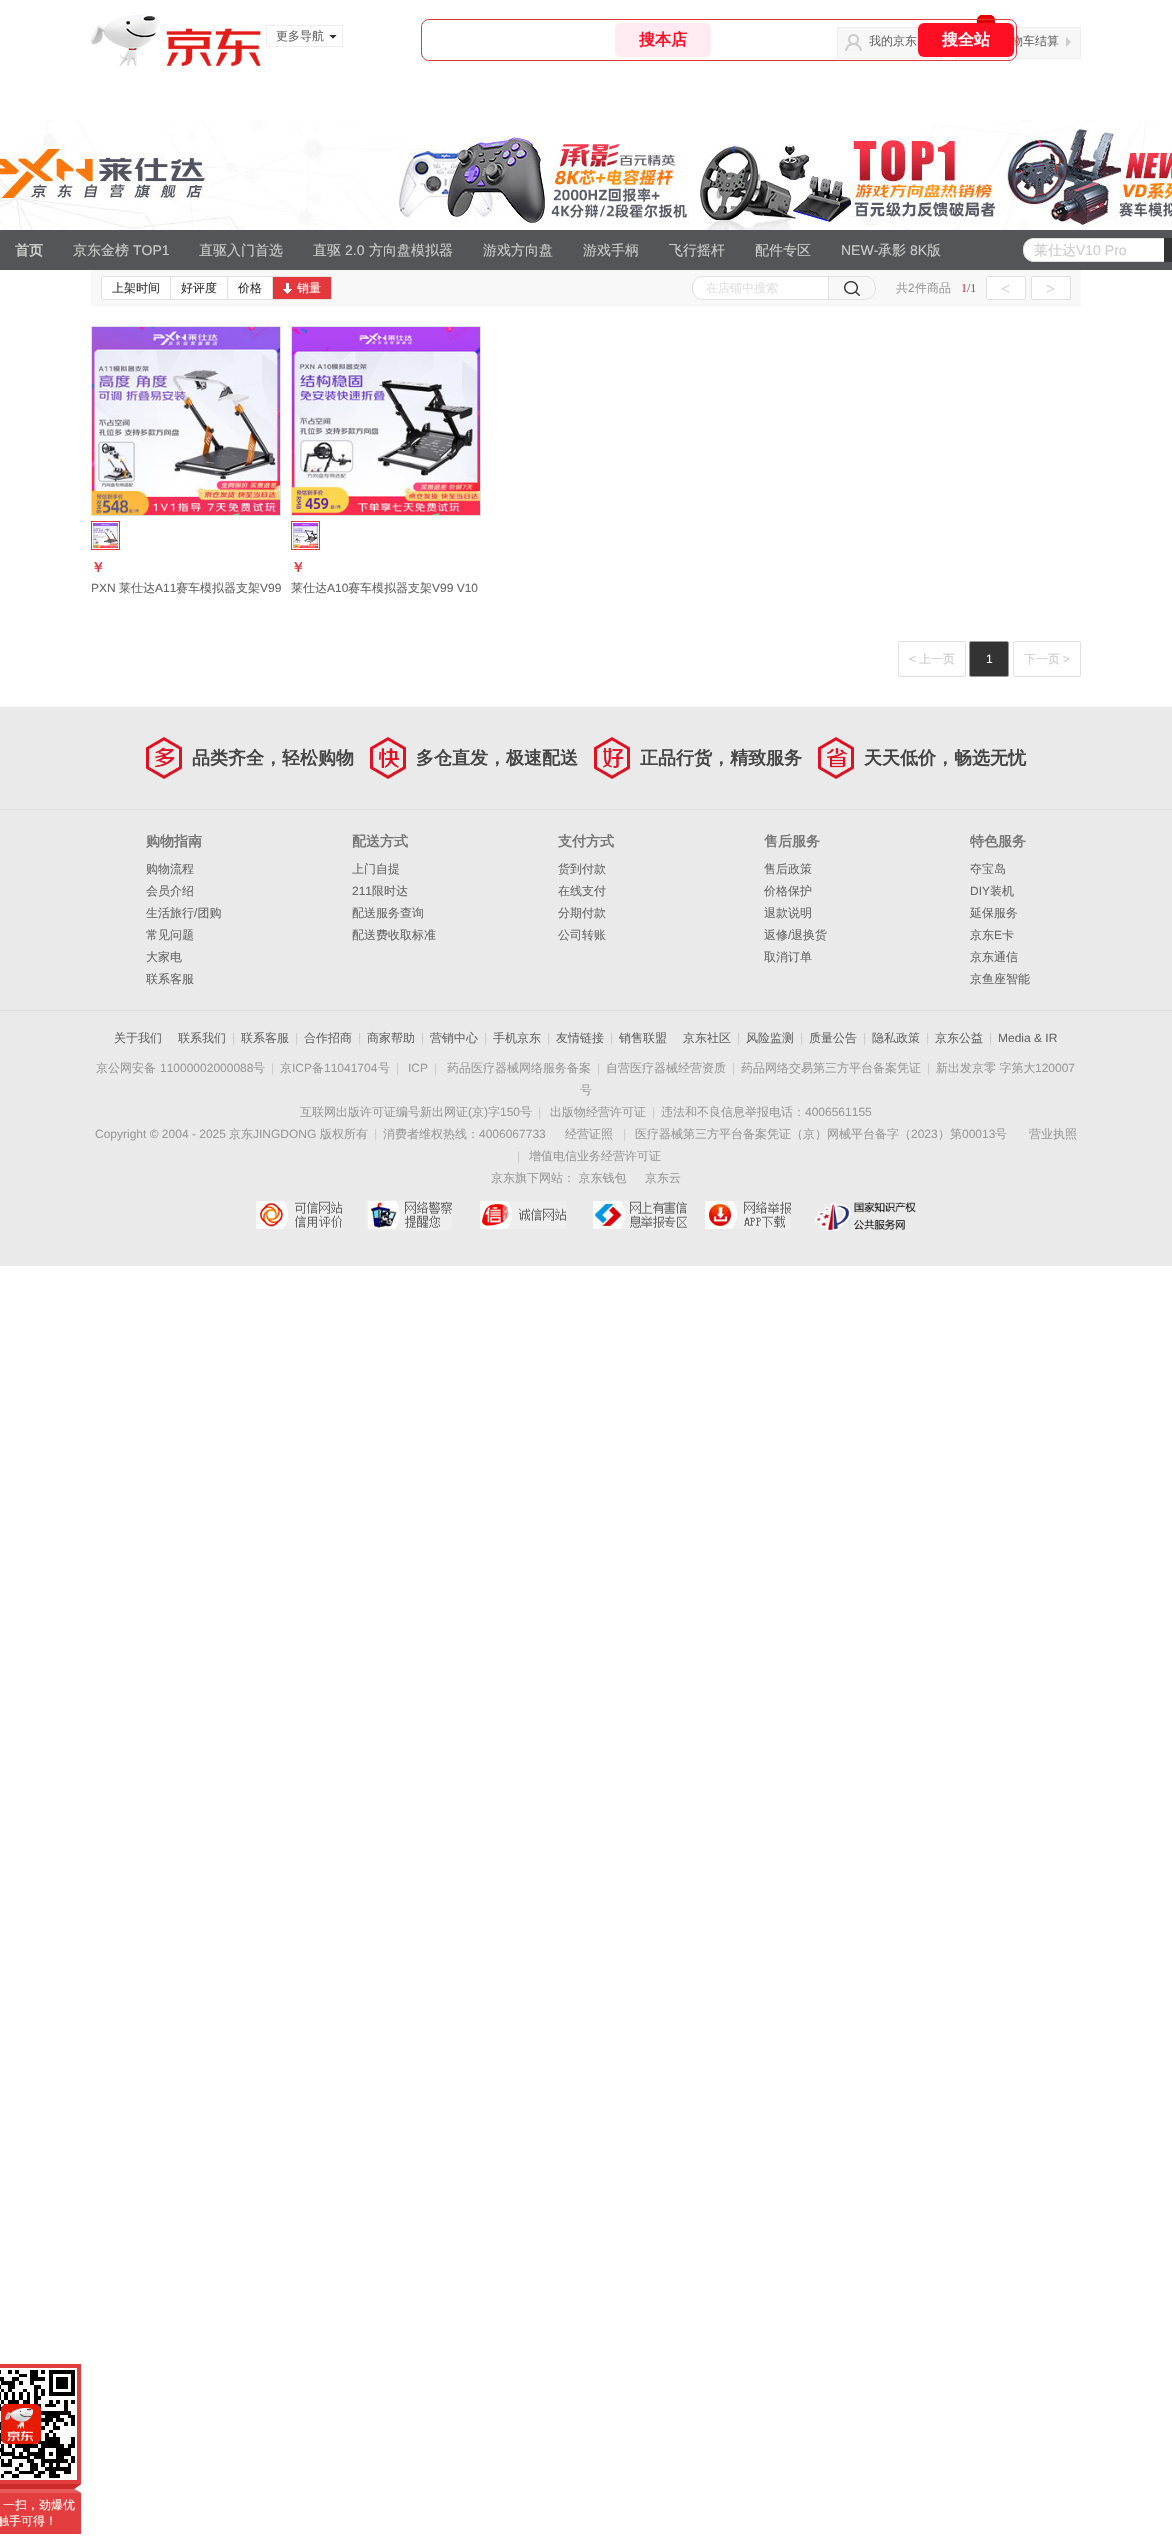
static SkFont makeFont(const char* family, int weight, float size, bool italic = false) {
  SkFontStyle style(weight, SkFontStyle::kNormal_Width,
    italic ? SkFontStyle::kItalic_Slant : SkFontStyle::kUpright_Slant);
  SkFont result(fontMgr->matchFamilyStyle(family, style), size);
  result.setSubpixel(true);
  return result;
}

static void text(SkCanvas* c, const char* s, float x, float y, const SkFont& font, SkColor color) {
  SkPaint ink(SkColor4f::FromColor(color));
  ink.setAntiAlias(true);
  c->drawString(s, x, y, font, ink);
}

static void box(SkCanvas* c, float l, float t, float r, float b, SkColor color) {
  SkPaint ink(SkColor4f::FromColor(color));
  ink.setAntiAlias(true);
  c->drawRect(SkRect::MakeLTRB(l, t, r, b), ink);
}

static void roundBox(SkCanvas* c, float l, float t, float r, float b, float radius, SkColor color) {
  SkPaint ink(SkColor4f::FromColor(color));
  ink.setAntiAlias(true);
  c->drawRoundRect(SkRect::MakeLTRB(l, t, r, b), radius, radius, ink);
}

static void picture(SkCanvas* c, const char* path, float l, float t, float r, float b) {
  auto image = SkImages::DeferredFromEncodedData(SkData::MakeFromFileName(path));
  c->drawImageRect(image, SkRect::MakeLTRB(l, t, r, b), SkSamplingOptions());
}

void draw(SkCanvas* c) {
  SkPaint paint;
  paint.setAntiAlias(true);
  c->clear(0xffffffff);
  picture(c, "img_01.png", 91, 15, 261, 66);
  paint.setStyle(SkPaint::kStroke_Style);
  paint.setStrokeWidth(1);
  paint.setColor(0xffeeeeee);
  c->drawRect(SkRect::MakeLTRB(266.5f, 25.5f, 342.5f, 46.5f), paint);
  SkFont face1 = makeFont("WenQuanYi Zen Hei", 500, 12);
  text(c, "更多导航", 276, 40, face1, 0xff666666);
  paint.setStyle(SkPaint::kFill_Style);
  paint.setColor(0xff333333);
  c->drawPath(SkPathBuilder().moveTo(329, 35).lineTo(337, 35).lineTo(333, 39).close().detach(), paint);
  paint.setColor(0xffffffff);
  c->drawPath(SkPathBuilder().moveTo(337, 35).lineTo(337, 43).lineTo(333, 39).close().moveTo(329, 43).lineTo(329, 35).lineTo(333, 39).close().detach(), paint);
  box(c, 838, 28, 942, 58, 0xfff7f7f7);
  picture(c, "img_02.png", 843, 34, 862, 51);
  paint.setStyle(SkPaint::kStroke_Style);
  paint.setColor(0xffefefef);
  c->drawRect(SkRect::MakeLTRB(837.5f, 27.5f, 942.5f, 58.5f), paint);
  paint.setStyle(SkPaint::kFill_Style);
  paint.setColor(0xfff7f7f7);
  c->drawRect(SkRect::MakeLTRB(955.5f, 27.5f, 1080.5f, 58.5f), paint);
  paint.setStyle(SkPaint::kStroke_Style);
  paint.setColor(0xffefefef);
  c->drawRect(SkRect::MakeLTRB(955.5f, 27.5f, 1080.5f, 58.5f), paint);
  picture(c, "img_03.png", 976, 15, 995, 23);
  picture(c, "img_04.png", 984, 15, 995, 23);
  text(c, "物车结算", 1011, 45, face1, 0xff666666);
  paint.setColor(0xffe4393c);
  c->drawRoundRect(SkRect::MakeLTRB(421.5f, 19.5f, 1016.5f, 60.5f), 7.5f, 7.5f, paint);
  paint.setStyle(SkPaint::kFill_Style);
  paint.setColor(0xffffffff);
  c->drawPath(SkPathBuilder().moveTo(430, 20).lineTo(617, 20).lineTo(617, 50).lineTo(422, 50).lineTo(422, 28).cubicTo(422, 23.5f, 425.5f, 20, 430, 20).close().detach(), paint);
  roundBox(c, 615, 23, 711, 57, 6, 0xffffebf1);
  SkFont face2 = makeFont("WenQuanYi Zen Hei", 700, 16);
  text(c, "搜本店", 639, 45, face2, 0xffff0f23);
  roundBox(c, 918, 23, 1014, 57, 6, 0xffff0f23);
  text(c, "搜全站", 942, 45, face2, 0xffffffff);
  text(c, "我的京东", 869, 45, face1, 0xff666666);
  paint.setColor(0xffcccccc);
  c->drawPath(SkPathBuilder().moveTo(1066, 47).lineTo(1066, 37).lineTo(1071, 42).close().detach(), paint);
  picture(c, "img_05.png", 0, 120, 1172, 230);
  box(c, 0, 230, 1172, 270, 0xff545558);
  SkFont face3 = makeFont("WenQuanYi Zen Hei", 700, 14);
  text(c, "首页", 15, 255, face3, 0xffcccccc);
  SkFont face4 = makeFont("WenQuanYi Zen Hei", 500, 14);
  text(c, "京东金榜", 73, 255, face4, 0xffcccccc);
  SkFont face5 = makeFont("Liberation Sans", 400, 14);
  text(c, "TOP1", 133, 255, face5, 0xffcccccc);
  text(c, "直驱入门首选", 199, 255, face4, 0xffcccccc);
  text(c, "直驱", 313, 255, face4, 0xffcccccc);
  text(c, "2.0", 345, 255, face5, 0xffcccccc);
  text(c, "方向盘模拟器", 369, 255, face4, 0xffcccccc);
  text(c, "游戏方向盘", 483, 255, face4, 0xffcccccc);
  text(c, "游戏手柄", 583, 255, face4, 0xffcccccc);
  text(c, "飞行摇杆", 669, 255, face4, 0xffcccccc);
  text(c, "配件专区", 755, 255, face4, 0xffcccccc);
  text(c, "NEW-", 841, 255, face5, 0xffcccccc);
  text(c, "承影", 878, 255, face4, 0xffcccccc);
  text(c, "8K", 910, 255, face5, 0xffcccccc);
  text(c, "版", 927, 255, face4, 0xffcccccc);
  paint.setColor(0xffffffff);
  c->drawPath(SkPathBuilder().moveTo(1034, 238.5f).lineTo(1164.5f, 238.5f).lineTo(1164.5f, 261.5f).lineTo(1034, 261.5f).cubicTo(1028, 261.5f, 1023.5f, 257, 1023.5f, 251).lineTo(1023.5f, 249).cubicTo(1023.5f, 243, 1028, 238.5f, 1034, 238.5f).close().detach(), paint);
  paint.setStyle(SkPaint::kStroke_Style);
  paint.setColor(0xffe1e1e1);
  c->drawPath(SkPathBuilder().moveTo(1034, 238.5f).lineTo(1164.5f, 238.5f).lineTo(1164.5f, 261.5f).lineTo(1034, 261.5f).cubicTo(1028, 261.5f, 1023.5f, 257, 1023.5f, 251).lineTo(1023.5f, 249).cubicTo(1023.5f, 243, 1028, 238.5f, 1034, 238.5f).close().detach(), paint);
  text(c, "莱仕达", 1034, 255, face4, 0xffcccccc);
  text(c, "V10 Pro", 1076, 255, face5, 0xffcccccc);
  box(c, 1164, 238, 1172, 262, 0xff333333);
  box(c, 91, 270, 1081, 306, 0xfff8f8f8);
  paint.setStyle(SkPaint::kFill_Style);
  paint.setColor(0xffffffff);
  c->drawRect(SkRect::MakeLTRB(101.5f, 276.5f, 170.5f, 299.5f), paint);
  paint.setStyle(SkPaint::kStroke_Style);
  paint.setColor(0xffe1e1e1);
  c->drawRect(SkRect::MakeLTRB(101.5f, 276.5f, 170.5f, 299.5f), paint);
  text(c, "上架时间", 112, 292, face1, 0xff333333);
  paint.setStyle(SkPaint::kFill_Style);
  paint.setColor(0xffffffff);
  c->drawRect(SkRect::MakeLTRB(170.5f, 276.5f, 227.5f, 299.5f), paint);
  paint.setStyle(SkPaint::kStroke_Style);
  paint.setColor(0xffe1e1e1);
  c->drawRect(SkRect::MakeLTRB(170.5f, 276.5f, 227.5f, 299.5f), paint);
  text(c, "好评度", 181, 292, face1, 0xff333333);
  paint.setStyle(SkPaint::kFill_Style);
  paint.setColor(0xffffffff);
  c->drawRect(SkRect::MakeLTRB(227.5f, 276.5f, 272.5f, 299.5f), paint);
  paint.setStyle(SkPaint::kStroke_Style);
  paint.setColor(0xffe1e1e1);
  c->drawRect(SkRect::MakeLTRB(227.5f, 276.5f, 272.5f, 299.5f), paint);
  text(c, "价格", 238, 292, face1, 0xff333333);
  paint.setStyle(SkPaint::kFill_Style);
  paint.setColor(0xffe4393c);
  c->drawRect(SkRect::MakeLTRB(272.5f, 276.5f, 331.5f, 299.5f), paint);
  paint.setStyle(SkPaint::kStroke_Style);
  paint.setColor(0xffe1e1e1);
  c->drawRect(SkRect::MakeLTRB(272.5f, 276.5f, 331.5f, 299.5f), paint);
  picture(c, "img_06.png", 283, 283, 292, 294);
  text(c, "销量", 297, 292, face1, 0xffffffff);
  paint.setStyle(SkPaint::kFill_Style);
  paint.setColor(0xffffffff);
  c->drawPath(SkPathBuilder().moveTo(703, 276.5f).lineTo(828.5f, 276.5f).lineTo(828.5f, 299.5f).lineTo(703, 299.5f).cubicTo(697, 299.5f, 692.5f, 295, 692.5f, 289).lineTo(692.5f, 287).cubicTo(692.5f, 281, 697, 276.5f, 703, 276.5f).close().detach(), paint);
  paint.setStyle(SkPaint::kStroke_Style);
  paint.setColor(0xffe1e1e1);
  c->drawPath(SkPathBuilder().moveTo(703, 276.5f).lineTo(828.5f, 276.5f).lineTo(828.5f, 299.5f).lineTo(703, 299.5f).cubicTo(697, 299.5f, 692.5f, 295, 692.5f, 289).lineTo(692.5f, 287).cubicTo(692.5f, 281, 697, 276.5f, 703, 276.5f).close().detach(), paint);
  text(c, "在店铺中搜索", 706, 292, face1, 0xffe2e2e2);
  picture(c, "img_07.png", 844, 281, 860, 296);
  paint.setStyle(SkPaint::kFill_Style);
  c->drawPath(SkPathBuilder(SkPathFillType::kEvenOdd).moveTo(829, 276).lineTo(867, 276).cubicTo(873, 277, 876, 283, 876, 289).cubicTo(875, 302, 862, 300, 853, 300).lineTo(829, 300).close().moveTo(829, 277).lineTo(867, 277).cubicTo(873, 278, 875, 284, 875, 289).cubicTo(874, 301, 862, 299, 853, 299).lineTo(829, 299).close().detach(), paint);
  text(c, "共", 896, 292, face1, 0xff999999);
  SkFont face6 = makeFont("Liberation Sans", 400, 12);
  text(c, "2", 908, 292, face6, 0xff999999);
  text(c, "件商品", 915, 292, face1, 0xff999999);
  SkFont face7 = makeFont("Liberation Serif", 400, 12);
  text(c, "1", 961, 292, face7, 0xffe4393c);
  text(c, "/1", 967, 292, face7, 0xff666666);
  paint.setColor(0xffffffff);
  c->drawRoundRect(SkRect::MakeLTRB(986.5f, 276.5f, 1025.5f, 299.5f), 1.5f, 1.5f, paint);
  paint.setStyle(SkPaint::kStroke_Style);
  paint.setColor(0xffe1e1e1);
  c->drawRoundRect(SkRect::MakeLTRB(986.5f, 276.5f, 1025.5f, 299.5f), 1.5f, 1.5f, paint);
  SkFont face8 = makeFont("Liberation Serif", 400, 16);
  text(c, "<", 1001, 294, face8, 0xffcccccc);
  paint.setStyle(SkPaint::kFill_Style);
  paint.setColor(0xffffffff);
  c->drawRoundRect(SkRect::MakeLTRB(1031.5f, 276.5f, 1070.5f, 299.5f), 1.5f, 1.5f, paint);
  paint.setStyle(SkPaint::kStroke_Style);
  paint.setColor(0xffe1e1e1);
  c->drawRoundRect(SkRect::MakeLTRB(1031.5f, 276.5f, 1070.5f, 299.5f), 1.5f, 1.5f, paint);
  text(c, ">", 1046, 294, face8, 0xffcccccc);
  c->drawRect(SkRect::MakeLTRB(91.5f, 326.5f, 280.5f, 515.5f), paint);
  picture(c, "img_08.png", 92, 327, 280, 515);
  paint.setColor(0xffe4393c);
  c->drawRect(SkRect::MakeLTRB(91.5f, 521.5f, 119.5f, 549.5f), paint);
  picture(c, "img_09.png", 93, 523, 118, 548);
  text(c, "￥", 91, 572, face3, 0xffe4393c);
  text(c, "PXN", 91, 592, face6, 0xff666666);
  text(c, "莱仕达", 119, 592, face1, 0xff666666);
  text(c, "A11", 155, 592, face6, 0xff666666);
  text(c, "赛车模拟器支架", 176, 592, face1, 0xff666666);
  text(c, "V99", 260, 592, face6, 0xff666666);
  paint.setColor(0xffe1e1e1);
  c->drawRect(SkRect::MakeLTRB(291.5f, 326.5f, 480.5f, 515.5f), paint);
  picture(c, "img_10.png", 292, 327, 480, 515);
  paint.setColor(0xffe4393c);
  c->drawRect(SkRect::MakeLTRB(291.5f, 521.5f, 319.5f, 549.5f), paint);
  picture(c, "img_11.png", 293, 523, 318, 548);
  text(c, "￥", 291, 572, face3, 0xffe4393c);
  text(c, "莱仕达", 291, 592, face1, 0xff666666);
  text(c, "A10", 327, 592, face6, 0xff666666);
  text(c, "赛车模拟器支架", 348, 592, face1, 0xff666666);
  text(c, "V99 V10", 432, 592, face6, 0xff666666);
  paint.setColor(0xffe1e1e1);
  c->drawRoundRect(SkRect::MakeLTRB(898.5f, 641.5f, 965.5f, 676.5f), 1.5f, 1.5f, paint);
  text(c, "<", 909, 663, face6, 0xffcccccc);
  text(c, "上一页", 919, 663, face1, 0xffcccccc);
  paint.setStyle(SkPaint::kFill_Style);
  paint.setColor(0xff333333);
  c->drawRoundRect(SkRect::MakeLTRB(969.5f, 641.5f, 1008.5f, 676.5f), 1.5f, 1.5f, paint);
  paint.setStyle(SkPaint::kStroke_Style);
  paint.setColor(0xff999999);
  c->drawRoundRect(SkRect::MakeLTRB(969.5f, 641.5f, 1008.5f, 676.5f), 1.5f, 1.5f, paint);
  text(c, "1", 986, 663, face6, 0xffffffff);
  paint.setColor(0xffe1e1e1);
  c->drawRoundRect(SkRect::MakeLTRB(1013.5f, 641.5f, 1080.5f, 676.5f), 1.5f, 1.5f, paint);
  text(c, "下一页", 1024, 663, face1, 0xffcccccc);
  text(c, ">", 1063, 663, face6, 0xffcccccc);
  box(c, 0, 707, 1172, 1266, 0xffeaeaea);
  picture(c, "img_12.png", 146, 737, 182, 779);
  SkFont face9 = makeFont("WenQuanYi Zen Hei", 700, 18);
  text(c, "品类齐全，轻松购物", 192, 764, face9, 0xff444444);
  picture(c, "img_13.png", 370, 737, 406, 779);
  text(c, "多仓直发，极速配送", 416, 764, face9, 0xff444444);
  picture(c, "img_14.png", 594, 737, 630, 779);
  text(c, "正品行货，精致服务", 640, 764, face9, 0xff444444);
  picture(c, "img_15.png", 818, 737, 854, 779);
  text(c, "天天低价，畅选无忧", 864, 764, face9, 0xff444444);
  box(c, 0, 809, 1172, 810, 0xffdedede);
  box(c, 0, 1010, 1172, 1011, 0xffdedede);
  text(c, "购物指南", 146, 846, face3, 0xff777777);
  text(c, "购物流程", 146, 873, face1, 0xff666666);
  text(c, "会员介绍", 146, 895, face1, 0xff666666);
  text(c, "生活旅行 团购", 146, 917, face1, 0xff666666);
  text(c, "/", 194, 917, face6, 0xff666666);
  text(c, "常见问题", 146, 939, face1, 0xff666666);
  text(c, "大家电", 146, 961, face1, 0xff666666);
  text(c, "联系客服", 146, 983, face1, 0xff666666);
  text(c, "配送方式", 352, 846, face3, 0xff777777);
  text(c, "上门自提", 352, 873, face1, 0xff666666);
  text(c, "211", 352, 895, face6, 0xff666666);
  text(c, "限时达", 372, 895, face1, 0xff666666);
  text(c, "配送服务查询", 352, 917, face1, 0xff666666);
  text(c, "配送费收取标准", 352, 939, face1, 0xff666666);
  text(c, "支付方式", 558, 846, face3, 0xff777777);
  text(c, "货到付款", 558, 873, face1, 0xff666666);
  text(c, "在线支付", 558, 895, face1, 0xff666666);
  text(c, "分期付款", 558, 917, face1, 0xff666666);
  text(c, "公司转账", 558, 939, face1, 0xff666666);
  text(c, "售后服务", 764, 846, face3, 0xff777777);
  text(c, "售后政策", 764, 873, face1, 0xff666666);
  text(c, "价格保护", 764, 895, face1, 0xff666666);
  text(c, "退款说明", 764, 917, face1, 0xff666666);
  text(c, "返修", 764, 939, face1, 0xff666666);
  text(c, "/", 788, 939, face6, 0xff666666);
  text(c, "退换货", 791, 939, face1, 0xff666666);
  text(c, "取消订单", 764, 961, face1, 0xff666666);
  text(c, "特色服务", 970, 846, face3, 0xff777777);
  text(c, "夺宝岛", 970, 873, face1, 0xff666666);
  text(c, "DIY", 970, 895, face6, 0xff666666);
  text(c, "装机", 990, 895, face1, 0xff666666);
  text(c, "延保服务", 970, 917, face1, 0xff666666);
  text(c, "京东", 970, 939, face1, 0xff666666);
  text(c, "E", 994, 939, face6, 0xff666666);
  text(c, "卡", 1002, 939, face1, 0xff666666);
  text(c, "京东通信", 970, 961, face1, 0xff666666);
  text(c, "京鱼座智能", 970, 983, face1, 0xff666666);
  text(c, "关于我们", 114, 1042, face1, 0xff666666);
  text(c, "联系我们", 178, 1042, face1, 0xff666666);
  text(c, "|", 232, 1042, face6, 0xffcccccc);
  text(c, "联系客服", 241, 1042, face1, 0xff666666);
  text(c, "|", 295, 1042, face6, 0xffcccccc);
  text(c, "合作招商", 304, 1042, face1, 0xff666666);
  text(c, "|", 358, 1042, face6, 0xffcccccc);
  text(c, "商家帮助", 367, 1042, face1, 0xff666666);
  text(c, "|", 421, 1042, face6, 0xffcccccc);
  text(c, "营销中心", 430, 1042, face1, 0xff666666);
  text(c, "|", 484, 1042, face6, 0xffcccccc);
  text(c, "手机京东", 493, 1042, face1, 0xff666666);
  text(c, "|", 547, 1042, face6, 0xffcccccc);
  text(c, "友情链接", 556, 1042, face1, 0xff666666);
  text(c, "|", 610, 1042, face6, 0xffcccccc);
  text(c, "销售联盟", 619, 1042, face1, 0xff666666);
  text(c, "京东社区", 683, 1042, face1, 0xff666666);
  text(c, "|", 737, 1042, face6, 0xffcccccc);
  text(c, "风险监测", 746, 1042, face1, 0xff666666);
  text(c, "|", 800, 1042, face6, 0xffcccccc);
  text(c, "质量公告", 809, 1042, face1, 0xff666666);
  text(c, "|", 863, 1042, face6, 0xffcccccc);
  text(c, "隐私政策", 872, 1042, face1, 0xff666666);
  text(c, "|", 926, 1042, face6, 0xffcccccc);
  text(c, "京东公益", 935, 1042, face1, 0xff666666);
  text(c, "|", 989, 1042, face6, 0xffcccccc);
  text(c, "Media & IR", 998, 1042, face6, 0xff666666);
  text(c, "京公网安备", 96, 1072, face1, 0xff999999);
  text(c, "11000002000088", 160, 1072, face6, 0xff999999);
  text(c, "号", 253, 1072, face1, 0xff999999);
  text(c, "|", 271, 1072, face6, 0xffcccccc);
  text(c, "京", 280, 1072, face1, 0xff999999);
  text(c, "ICP", 292, 1072, face6, 0xff999999);
  text(c, "备", 312, 1072, face1, 0xff999999);
  text(c, "11041704", 324, 1072, face6, 0xff999999);
  text(c, "号", 378, 1072, face1, 0xff999999);
  text(c, "|", 396, 1072, face6, 0xffcccccc);
  text(c, "ICP", 408, 1072, face6, 0xff999999);
  text(c, "|", 434, 1072, face6, 0xffcccccc);
  text(c, "药品医疗器械网络服务备案", 447, 1072, face1, 0xff999999);
  text(c, "|", 597, 1072, face6, 0xffcccccc);
  text(c, "自营医疗器械经营资质", 606, 1072, face1, 0xff999999);
  text(c, "|", 732, 1072, face6, 0xffcccccc);
  text(c, "药品网络交易第三方平台备案凭证", 741, 1072, face1, 0xff999999);
  text(c, "|", 927, 1072, face6, 0xffcccccc);
  text(c, "新出发京零 字第大", 936, 1072, face1, 0xff999999);
  text(c, "120007", 1035, 1072, face6, 0xff999999);
  text(c, "号", 580, 1094, face1, 0xff999999);
  text(c, "互联网出版许可证编号新出网证", 300, 1116, face1, 0xff999999);
  text(c, "(", 468, 1116, face6, 0xff999999);
  text(c, "京", 472, 1116, face1, 0xff999999);
  text(c, ")", 484, 1116, face6, 0xff999999);
  text(c, "字", 488, 1116, face1, 0xff999999);
  text(c, "150", 500, 1116, face6, 0xff999999);
  text(c, "号", 520, 1116, face1, 0xff999999);
  text(c, "|", 538, 1116, face6, 0xffcccccc);
  text(c, "出版物经营许可证", 550, 1116, face1, 0xff999999);
  text(c, "|", 652, 1116, face6, 0xffcccccc);
  text(c, "违法和不良信息举报电话：", 661, 1116, face1, 0xff999999);
  text(c, "4006561155", 805, 1116, face6, 0xff999999);
  text(c, "Copyright © 2004 - 2025", 95, 1138, face6, 0xff999999);
  text(c, "京东", 229, 1138, face1, 0xff999999);
  text(c, "JINGDONG", 253, 1138, face6, 0xff999999);
  text(c, "版权所有", 320, 1138, face1, 0xff999999);
  text(c, "|", 374, 1138, face6, 0xffcccccc);
  text(c, "消费者维权热线：", 383, 1138, face1, 0xff999999);
  text(c, "4006067733", 479, 1138, face6, 0xff999999);
  text(c, "经营证照", 565, 1138, face1, 0xff999999);
  text(c, "|", 623, 1138, face6, 0xffcccccc);
  text(c, "医疗器械第三方平台备案凭证（京）网械平台备字（", 635, 1138, face1, 0xff999999);
  text(c, "2023", 911, 1138, face6, 0xff999999);
  text(c, "）第", 938, 1138, face1, 0xff999999);
  text(c, "00013", 962, 1138, face6, 0xff999999);
  text(c, "号", 995, 1138, face1, 0xff999999);
  text(c, "营业执照", 1029, 1138, face1, 0xff999999);
  text(c, "|", 517, 1160, face6, 0xffcccccc);
  text(c, "增值电信业务经营许可证", 529, 1160, face1, 0xff999999);
  text(c, "京东旗下网站： 京东钱包", 491, 1182, face1, 0xff999999);
  text(c, "京东云", 645, 1182, face1, 0xff999999);
  picture(c, "img_16.png", 256, 1201, 342, 1229);
  picture(c, "img_17.png", 366, 1200, 452, 1231);
  picture(c, "img_18.png", 480, 1201, 566, 1229);
  picture(c, "img_19.png", 593, 1201, 687, 1229);
  picture(c, "img_20.png", 705, 1201, 791, 1229);
  picture(c, "img_21.png", 815, 1202, 916, 1231);
  box(c, 0, 2364, 81, 2484, 0xffe43d3f);
  picture(c, "img_22.png", 0, 2368, 77, 2480);
  picture(c, "img_23.png", 0, 2484, 81, 2493);
  box(c, 0, 2493, 81, 2534, 0xffe43d3f);
  text(c, "一扫，劲爆优", 3, 2509, face1, 0xfffffbee);
  text(c, "触手可得！", -3, 2525, face1, 0xfffffbee);
}
